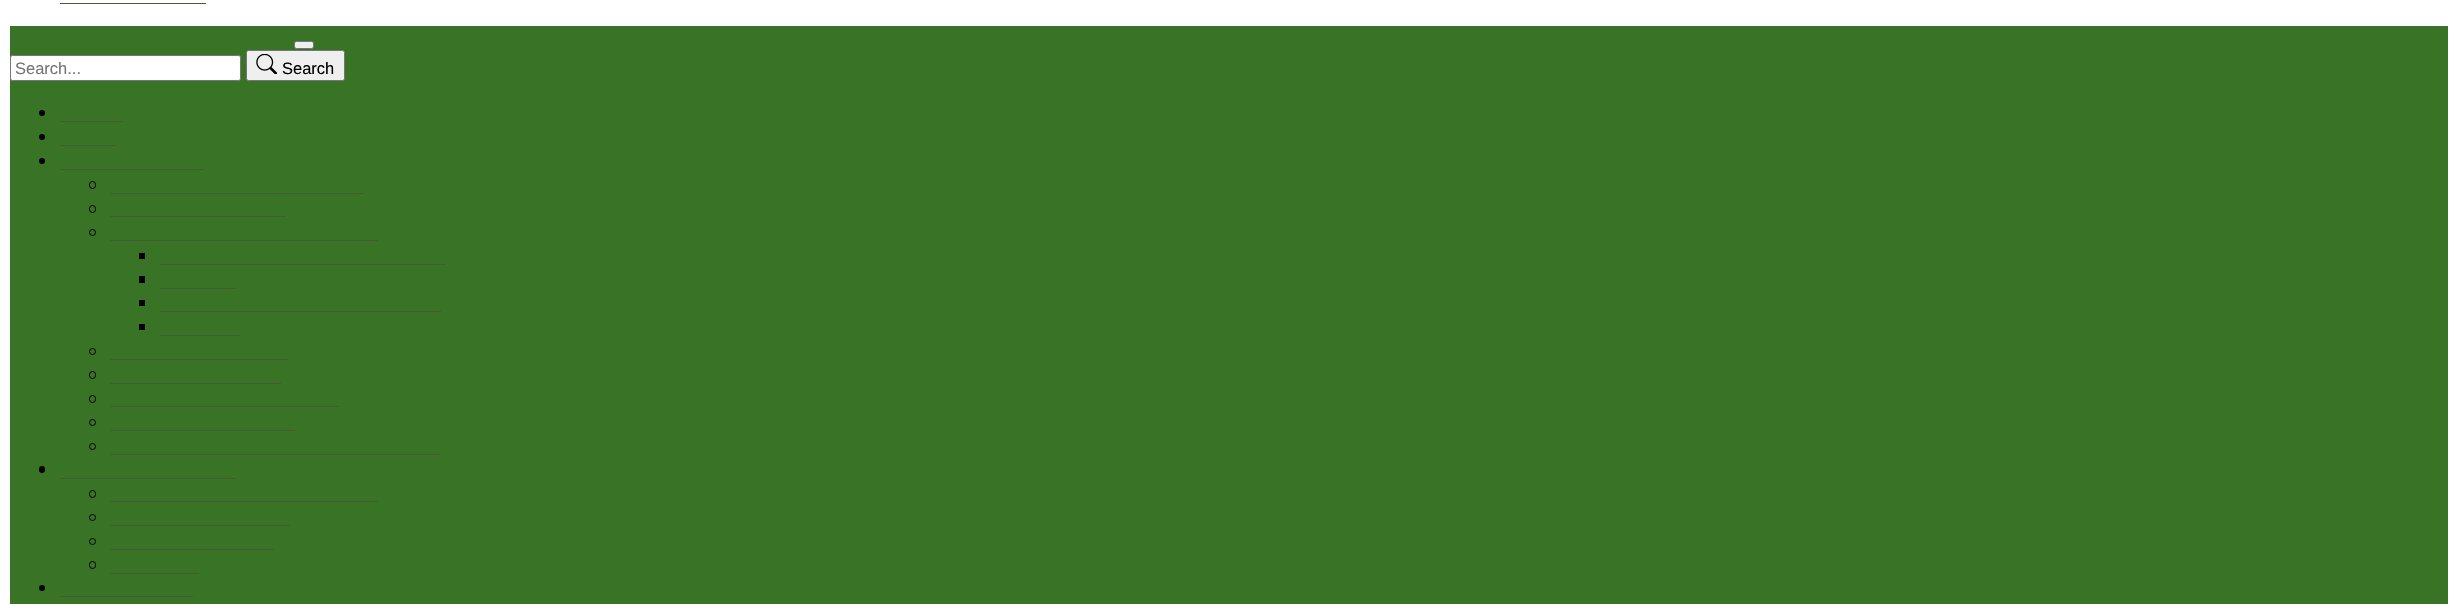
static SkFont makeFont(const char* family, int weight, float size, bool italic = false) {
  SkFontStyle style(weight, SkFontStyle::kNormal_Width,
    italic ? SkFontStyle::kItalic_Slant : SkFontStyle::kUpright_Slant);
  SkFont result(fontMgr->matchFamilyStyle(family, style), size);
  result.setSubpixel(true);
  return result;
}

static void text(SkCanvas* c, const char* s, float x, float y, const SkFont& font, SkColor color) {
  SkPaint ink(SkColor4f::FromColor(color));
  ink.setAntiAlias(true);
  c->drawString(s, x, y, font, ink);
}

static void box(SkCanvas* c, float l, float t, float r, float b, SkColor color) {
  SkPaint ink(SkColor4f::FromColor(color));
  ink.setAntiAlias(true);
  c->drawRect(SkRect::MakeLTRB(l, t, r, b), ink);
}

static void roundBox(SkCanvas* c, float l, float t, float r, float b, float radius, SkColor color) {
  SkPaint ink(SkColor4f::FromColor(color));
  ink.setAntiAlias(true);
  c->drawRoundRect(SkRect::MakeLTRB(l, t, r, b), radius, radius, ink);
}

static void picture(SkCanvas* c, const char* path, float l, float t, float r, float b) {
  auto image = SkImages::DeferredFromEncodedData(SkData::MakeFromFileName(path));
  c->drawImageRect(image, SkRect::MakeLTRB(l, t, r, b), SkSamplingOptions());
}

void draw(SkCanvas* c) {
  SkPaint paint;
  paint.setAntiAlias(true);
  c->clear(0xffffffff);
  box(c, 60, 3, 206, 4, 0xff455c31);
  box(c, 10, 26, 2448, 604, 0xff397326);
  paint.setColor(0xffefefef);
  c->drawRoundRect(SkRect::MakeLTRB(294.5f, 41.5f, 313.5f, 48.5f), 2, 2, paint);
  paint.setStyle(SkPaint::kStroke_Style);
  paint.setStrokeWidth(1);
  paint.setColor(0xff767676);
  c->drawRoundRect(SkRect::MakeLTRB(294.5f, 41.5f, 313.5f, 48.5f), 2, 2, paint);
  paint.setStyle(SkPaint::kFill_Style);
  paint.setColor(0xffffffff);
  c->drawRoundRect(SkRect::MakeLTRB(10.5f, 55.5f, 240.5f, 80.5f), 2, 2, paint);
  paint.setStyle(SkPaint::kStroke_Style);
  paint.setColor(0xff767676);
  c->drawRoundRect(SkRect::MakeLTRB(10.5f, 55.5f, 240.5f, 80.5f), 2, 2, paint);
  SkFont face1 = makeFont("Liberation Sans", 400, 16.5f);
  text(c, "Search...", 15, 74, face1, 0xff757575);
  paint.setStyle(SkPaint::kFill_Style);
  paint.setColor(0xffefefef);
  c->drawRoundRect(SkRect::MakeLTRB(246.5f, 50.5f, 344.5f, 80.5f), 2, 2, paint);
  paint.setStyle(SkPaint::kStroke_Style);
  paint.setColor(0xff767676);
  c->drawRoundRect(SkRect::MakeLTRB(246.5f, 50.5f, 344.5f, 80.5f), 2, 2, paint);
  picture(c, "img_01.png", 256, 54, 278, 74);
  text(c, "Search", 282, 74, face1, 0xff000000);
  paint.setStyle(SkPaint::kFill_Style);
  paint.setColor(0xff000000);
  c->drawCircle(42, 113, 3, paint);
  box(c, 60, 121, 123, 122, 0xff455c31);
  c->drawCircle(42, 137, 3, paint);
  box(c, 60, 145, 116, 146, 0xff455c31);
  c->drawCircle(42, 161, 3, paint);
  box(c, 60, 169, 204, 170, 0xff455c31);
  paint.setStyle(SkPaint::kStroke_Style);
  c->drawRoundRect(SkRect::MakeLTRB(89.5f, 181.5f, 95.5f, 188.5f), 3, 3, paint);
  box(c, 110, 193, 364, 194, 0xff455c31);
  c->drawRoundRect(SkRect::MakeLTRB(89.5f, 205.5f, 95.5f, 212.5f), 3, 3, paint);
  box(c, 110, 216, 286, 217, 0xff455c31);
  c->drawCircle(92.5f, 232.5f, 3, paint);
  box(c, 110, 240, 378, 241, 0xff455c31);
  box(c, 139, 253, 145, 259, 0xff000000);
  box(c, 160, 264, 446, 265, 0xff455c31);
  box(c, 139, 276, 145, 283, 0xff000000);
  box(c, 160, 288, 236, 289, 0xff455c31);
  box(c, 139, 300, 145, 306, 0xff000000);
  box(c, 160, 311, 441, 312, 0xff455c31);
  box(c, 139, 324, 145, 330, 0xff000000);
  box(c, 160, 335, 240, 336, 0xff455c31);
  c->drawCircle(92.5f, 351.5f, 3, paint);
  box(c, 110, 359, 288, 360, 0xff455c31);
  c->drawRoundRect(SkRect::MakeLTRB(89.5f, 371.5f, 95.5f, 378.5f), 3, 3, paint);
  box(c, 110, 383, 281, 384, 0xff455c31);
  c->drawRoundRect(SkRect::MakeLTRB(89.5f, 395.5f, 95.5f, 402.5f), 3, 3, paint);
  box(c, 110, 406, 339, 407, 0xff455c31);
  c->drawCircle(92.5f, 422.5f, 3, paint);
  box(c, 110, 430, 295, 431, 0xff455c31);
  c->drawCircle(92.5f, 446.5f, 3, paint);
  box(c, 110, 454, 440, 455, 0xff455c31);
  roundBox(c, 39, 466, 45, 473, 3, 0xff000000);
  box(c, 60, 478, 236, 479, 0xff455c31);
  c->drawRoundRect(SkRect::MakeLTRB(89.5f, 490.5f, 95.5f, 497.5f), 3, 3, paint);
  box(c, 110, 501, 378, 502, 0xff455c31);
  c->drawCircle(92.5f, 517.5f, 3, paint);
  box(c, 110, 525, 290, 526, 0xff455c31);
  c->drawCircle(92.5f, 541.5f, 3, paint);
  box(c, 110, 549, 274, 550, 0xff455c31);
  c->drawRoundRect(SkRect::MakeLTRB(89.5f, 561.5f, 95.5f, 568.5f), 3, 3, paint);
  box(c, 110, 573, 199, 574, 0xff455c31);
  paint.setStyle(SkPaint::kFill_Style);
  c->drawCircle(42, 588, 3, paint);
  box(c, 60, 596, 193, 597, 0xff455c31);
}
